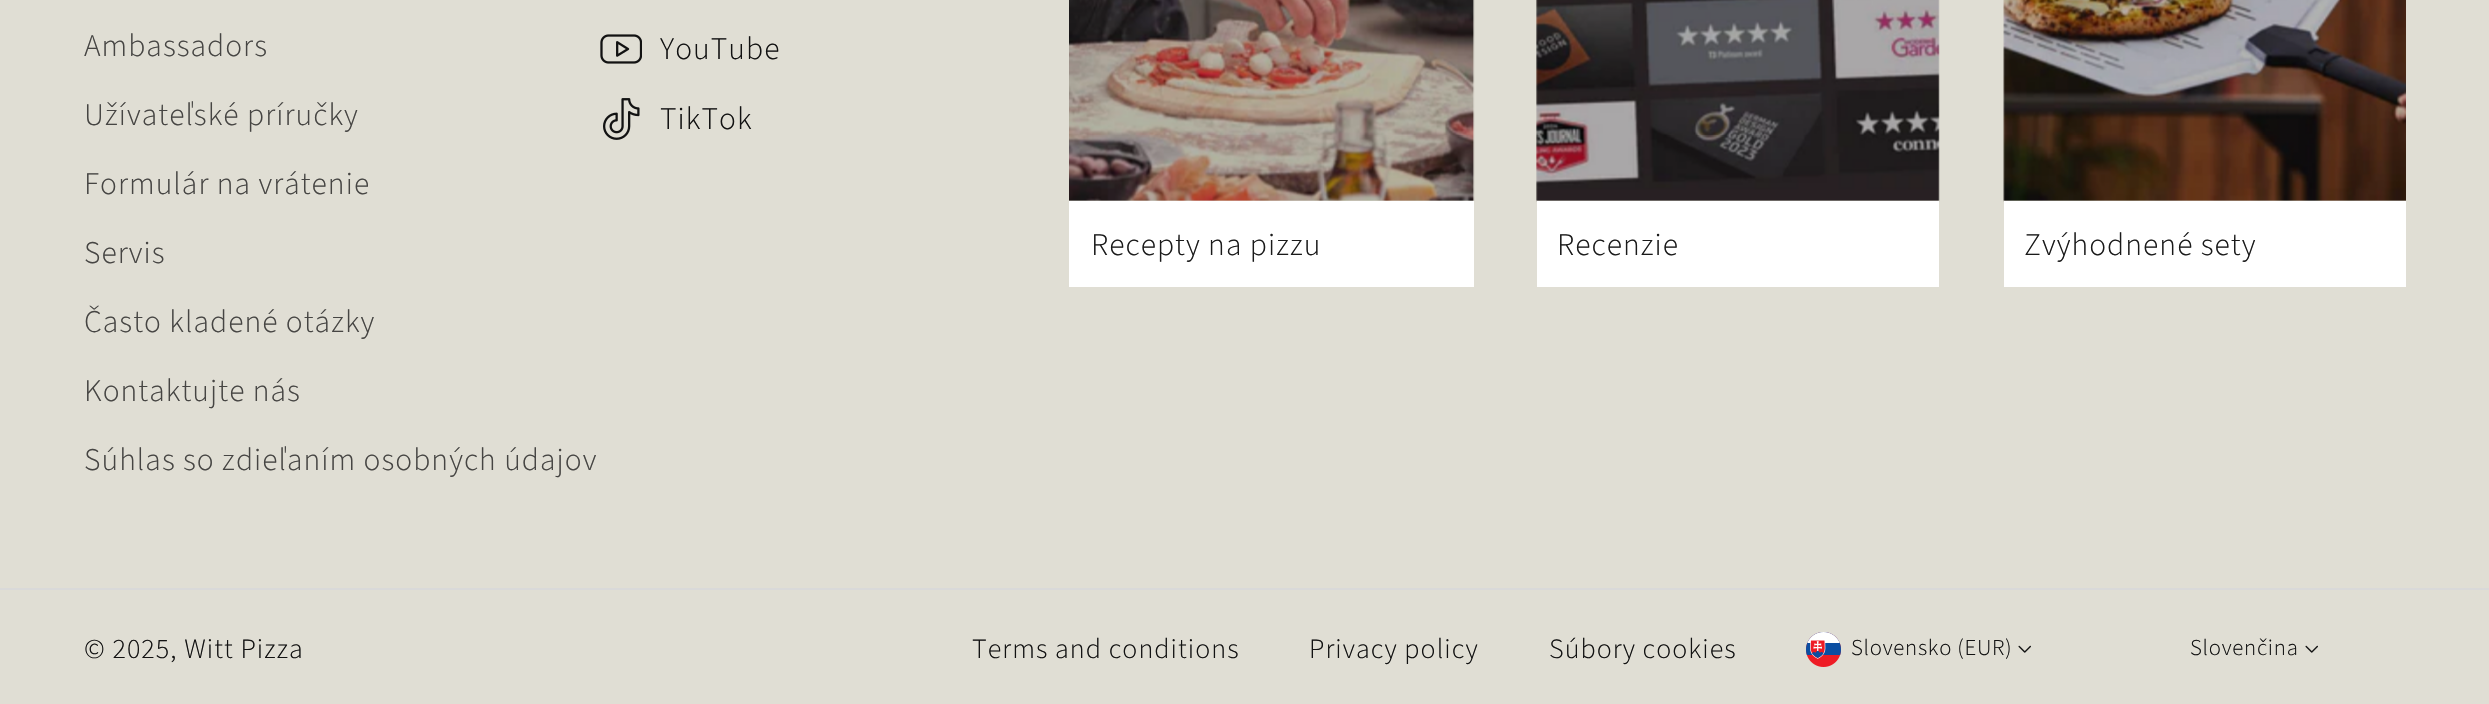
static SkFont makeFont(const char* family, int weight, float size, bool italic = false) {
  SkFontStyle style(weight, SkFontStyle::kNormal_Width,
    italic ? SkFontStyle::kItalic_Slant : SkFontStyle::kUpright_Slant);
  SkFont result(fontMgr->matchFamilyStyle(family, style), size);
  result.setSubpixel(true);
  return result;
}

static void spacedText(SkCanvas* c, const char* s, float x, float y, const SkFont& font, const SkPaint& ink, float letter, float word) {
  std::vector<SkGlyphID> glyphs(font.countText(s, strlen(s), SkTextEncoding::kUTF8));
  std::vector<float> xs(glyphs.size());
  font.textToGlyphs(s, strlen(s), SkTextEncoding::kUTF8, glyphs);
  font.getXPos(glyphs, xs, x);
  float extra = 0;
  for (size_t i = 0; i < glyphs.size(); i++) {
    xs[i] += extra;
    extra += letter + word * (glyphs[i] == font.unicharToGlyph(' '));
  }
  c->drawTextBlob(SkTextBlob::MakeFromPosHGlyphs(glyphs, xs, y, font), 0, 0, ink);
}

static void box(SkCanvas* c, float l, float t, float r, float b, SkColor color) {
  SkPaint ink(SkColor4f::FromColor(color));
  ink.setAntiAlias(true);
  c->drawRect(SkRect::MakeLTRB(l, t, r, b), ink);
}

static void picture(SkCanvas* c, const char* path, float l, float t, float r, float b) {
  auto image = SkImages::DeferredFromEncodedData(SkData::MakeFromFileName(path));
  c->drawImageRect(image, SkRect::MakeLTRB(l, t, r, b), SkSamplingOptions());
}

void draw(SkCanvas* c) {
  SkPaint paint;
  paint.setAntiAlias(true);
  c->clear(0xffe0ded4);
  SkFont face1 = makeFont("Source Sans Pro", 300, 31.5f);
  paint.setColor(0xff464543);
  spacedText(c, "Ambassadors", 84, 56, face1, paint, 1.05f, 0);
  spacedText(c, "Užívateľské príručky", 84, 125, face1, paint, 1.05f, 0);
  spacedText(c, "Formulár na vrátenie", 84, 194, face1, paint, 1.05f, 0);
  spacedText(c, "Servis", 84, 263, face1, paint, 1.05f, 0);
  spacedText(c, "Často kladené otázky", 84, 332, face1, paint, 1.05f, 0);
  spacedText(c, "Kontaktujte nás", 84, 401, face1, paint, 1.05f, 0);
  spacedText(c, "Súhlas so zdieľaním osobných údajov", 84, 470, face1, paint, 1.05f, 0);
  picture(c, "img_01.png", 600, 34, 642, 64);
  paint.setColor(0xff121212);
  spacedText(c, "YouTube", 660, 59, face1, paint, 1.05f, 0);
  picture(c, "img_02.png", 603, 98, 640, 140);
  spacedText(c, "TikTok", 660, 129, face1, paint, 1.05f, 0);
  picture(c, "img_03.png", 1069, 0, 1475, 201);
  box(c, 1069, 201, 1474, 287, 0xffffffff);
  paint.setColor(0xff1a1a1a);
  spacedText(c, "Recepty na pizzu", 1091, 255, face1, paint, 1.05f, 0);
  picture(c, "img_04.png", 1536, 0, 1940, 202);
  box(c, 1537, 201, 1939, 287, 0xffffffff);
  spacedText(c, "Recenzie", 1557, 255, face1, paint, 1.05f, 0);
  picture(c, "img_05.png", 2003, 0, 2406, 202);
  box(c, 2004, 201, 2406, 287, 0xffffffff);
  spacedText(c, "Zvýhodnené sety", 2024, 255, face1, paint, 1.05f, 0);
  box(c, 0, 588, 2489, 590, 0xffd9d9d9);
  SkFont face2 = makeFont("Source Sans Pro", 300, 28);
  paint.setColor(0xff121212);
  spacedText(c, "© 2025, Witt Pizza", 84, 658, face2, paint, 1.05f, 0);
  spacedText(c, "Terms and conditions", 972, 658, face2, paint, 1.05f, 0);
  spacedText(c, "Privacy policy", 1309, 658, face2, paint, 1.05f, 0);
  spacedText(c, "Súbory cookies", 1549, 658, face2, paint, 1.05f, 0);
  picture(c, "img_06.png", 1806, 632, 1841, 667);
  SkFont face3 = makeFont("Source Sans Pro", 300, 22.75f);
  spacedText(c, "Slovensko (EUR)", 1851, 655, face3, paint, 0.75f, 0);
  picture(c, "img_07.png", 2018, 645, 2031, 653);
  spacedText(c, "Slovenčina", 2190, 655, face3, paint, 0.75f, 0);
  picture(c, "img_07.png", 2305, 645, 2318, 653);
}
